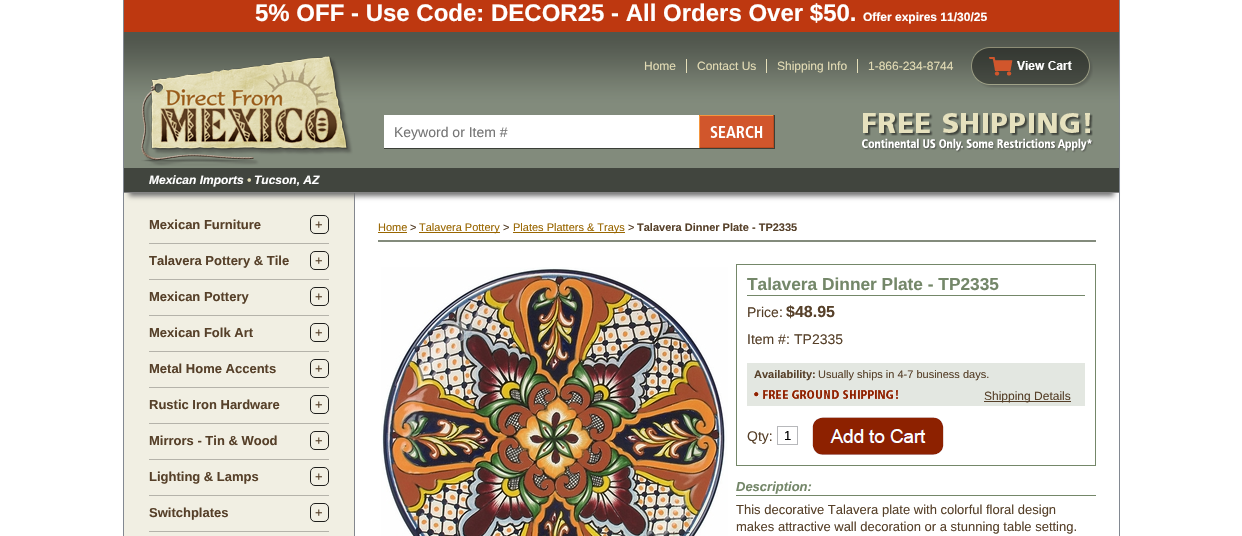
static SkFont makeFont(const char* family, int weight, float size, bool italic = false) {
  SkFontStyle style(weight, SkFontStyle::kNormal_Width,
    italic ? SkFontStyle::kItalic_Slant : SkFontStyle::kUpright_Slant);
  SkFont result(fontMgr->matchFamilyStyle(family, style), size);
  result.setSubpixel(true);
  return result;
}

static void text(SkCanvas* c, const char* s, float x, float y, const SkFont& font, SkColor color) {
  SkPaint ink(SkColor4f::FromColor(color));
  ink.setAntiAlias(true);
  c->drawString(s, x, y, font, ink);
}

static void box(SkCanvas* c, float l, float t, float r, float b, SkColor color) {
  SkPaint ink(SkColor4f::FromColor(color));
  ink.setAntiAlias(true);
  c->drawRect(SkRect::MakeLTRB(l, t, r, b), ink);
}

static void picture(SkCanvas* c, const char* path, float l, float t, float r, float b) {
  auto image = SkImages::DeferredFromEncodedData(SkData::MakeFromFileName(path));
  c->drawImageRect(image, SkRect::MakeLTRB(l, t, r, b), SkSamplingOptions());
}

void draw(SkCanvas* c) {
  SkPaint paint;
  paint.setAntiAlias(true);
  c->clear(0xffffffff);
  paint.setStyle(SkPaint::kStroke_Style);
  paint.setStrokeWidth(1);
  paint.setColor(0xff828891);
  c->drawRect(SkRect::MakeLTRB(123.5f, -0.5f, 1119.5f, 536.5f), paint);
  box(c, 124, 0, 1119, 32, 0xffbe3810);
  SkFont face1 = makeFont("Liberation Sans", 700, 24);
  text(c, "5% OFF - Use Code: DECOR25 - All Orders Over $50.", 255, 21, face1, 0xffffffff);
  SkFont face2 = makeFont("Liberation Sans", 700, 12);
  text(c, "Offer expires 11/30/25", 863, 21, face2, 0xffffffff);
  box(c, 124, 193, 354, 536, 0xfff1efe3);
  box(c, 354, 193, 355, 536, 0xff84878e);
  paint.setStyle(SkPaint::kFill_Style);
  paint.setColor(0xff707070);
  paint.setMaskFilter(SkMaskFilter::MakeBlur(kNormal_SkBlurStyle, 2.5f));
  c->drawRect(SkRect::MakeLTRB(129, 45, 1114, 196), paint);
  paint.setMaskFilter(nullptr);
  box(c, 124, 192, 1119, 193, 0xff848484);
  picture(c, "img_01.png", 124, 32, 1119, 168);
  picture(c, "img_02.png", 141, 56, 353, 166);
  box(c, 686, 59, 687, 73, 0xffe4deb8);
  SkFont face3 = makeFont("Liberation Sans", 400, 12);
  text(c, "Home", 644, 70, face3, 0xffe2dbb4);
  box(c, 766, 59, 767, 73, 0xffe4deb8);
  text(c, "Contact Us", 697, 70, face3, 0xffe2dbb4);
  box(c, 857, 59, 858, 73, 0xffe4deb8);
  text(c, "Shipping Info", 777, 70, face3, 0xffe2dbb4);
  text(c, "1-866-234-8744", 868, 70, face3, 0xffe2dbb4);
  picture(c, "img_03.png", 971, 47, 1093, 88);
  box(c, 384, 115, 699, 148, 0xffffffff);
  box(c, 774, 115, 775, 149, 0xff3b3f38);
  box(c, 384, 148, 775, 149, 0xff3b3f38);
  SkFont face4 = makeFont("Liberation Sans", 400, 14);
  text(c, "Keyword or Item #", 394, 137, face4, 0xff757575);
  picture(c, "img_04.png", 699, 115, 774, 148);
  picture(c, "img_05.png", 862, 113, 1094, 153);
  box(c, 124, 168, 1119, 192, 0xff41453e);
  SkFont face5 = makeFont("Liberation Sans", 700, 12, true);
  text(c, "Mexican Imports", 149, 184, face5, 0xffffffff);
  text(c, "•", 247, 184, face5, 0xffe2dbb4);
  text(c, "Tucson, AZ", 254, 184, face5, 0xffffffff);
  box(c, 149, 243, 329, 244, 0xffb5b3aa);
  SkFont face6 = makeFont("Liberation Sans", 700, 13);
  text(c, "Mexican Furniture", 149, 229, face6, 0xff564029);
  paint.setStyle(SkPaint::kStroke_Style);
  paint.setColor(0xff1e1e1c);
  c->drawRoundRect(SkRect::MakeLTRB(310.5f, 215.5f, 328.5f, 233.5f), 4.5f, 4.5f, paint);
  SkFont face7 = makeFont("Liberation Sans", 400, 13);
  text(c, "+", 315, 229, face7, 0xff564029);
  box(c, 149, 279, 329, 280, 0xffb5b3aa);
  text(c, "Talavera Pottery & Tile", 149, 265, face6, 0xff564029);
  c->drawRoundRect(SkRect::MakeLTRB(310.5f, 251.5f, 328.5f, 269.5f), 4.5f, 4.5f, paint);
  text(c, "+", 315, 265, face7, 0xff564029);
  box(c, 149, 315, 329, 316, 0xffb5b3aa);
  text(c, "Mexican Pottery", 149, 301, face6, 0xff564029);
  c->drawRoundRect(SkRect::MakeLTRB(310.5f, 287.5f, 328.5f, 305.5f), 4.5f, 4.5f, paint);
  text(c, "+", 315, 301, face7, 0xff564029);
  box(c, 149, 351, 329, 352, 0xffb5b3aa);
  text(c, "Mexican Folk Art", 149, 337, face6, 0xff564029);
  c->drawRoundRect(SkRect::MakeLTRB(310.5f, 323.5f, 328.5f, 341.5f), 4.5f, 4.5f, paint);
  text(c, "+", 315, 337, face7, 0xff564029);
  box(c, 149, 387, 329, 388, 0xffb5b3aa);
  text(c, "Metal Home Accents", 149, 373, face6, 0xff564029);
  c->drawRoundRect(SkRect::MakeLTRB(310.5f, 359.5f, 328.5f, 377.5f), 4.5f, 4.5f, paint);
  text(c, "+", 315, 373, face7, 0xff564029);
  box(c, 149, 423, 329, 424, 0xffb5b3aa);
  text(c, "Rustic Iron Hardware", 149, 409, face6, 0xff564029);
  c->drawRoundRect(SkRect::MakeLTRB(310.5f, 395.5f, 328.5f, 413.5f), 4.5f, 4.5f, paint);
  text(c, "+", 315, 409, face7, 0xff564029);
  box(c, 149, 459, 329, 460, 0xffb5b3aa);
  text(c, "Mirrors - Tin & Wood", 149, 445, face6, 0xff564029);
  c->drawRoundRect(SkRect::MakeLTRB(310.5f, 431.5f, 328.5f, 449.5f), 4.5f, 4.5f, paint);
  text(c, "+", 315, 445, face7, 0xff564029);
  box(c, 149, 495, 329, 496, 0xffb5b3aa);
  text(c, "Lighting & Lamps", 149, 481, face6, 0xff564029);
  c->drawRoundRect(SkRect::MakeLTRB(310.5f, 467.5f, 328.5f, 485.5f), 4.5f, 4.5f, paint);
  text(c, "+", 315, 481, face7, 0xff564029);
  box(c, 149, 531, 329, 532, 0xffb5b3aa);
  text(c, "Switchplates", 149, 517, face6, 0xff564029);
  c->drawRoundRect(SkRect::MakeLTRB(310.5f, 503.5f, 328.5f, 521.5f), 4.5f, 4.5f, paint);
  text(c, "+", 315, 517, face7, 0xff564029);
  box(c, 378, 240, 1096, 242, 0xff838b7c);
  SkFont face8 = makeFont("Liberation Sans", 400, 11);
  text(c, "Home", 378, 231, face8, 0xff996600);
  box(c, 378, 232, 407, 233, 0xff996600);
  text(c, ">", 410, 231, face8, 0xff564029);
  box(c, 419, 232, 500, 233, 0xff996600);
  text(c, "Talavera Pottery", 419, 231, face8, 0xff996600);
  text(c, ">", 503, 231, face8, 0xff564029);
  box(c, 513, 232, 625, 233, 0xff996600);
  text(c, "Plates Platters & Trays", 513, 231, face8, 0xff996600);
  text(c, ">", 628, 231, face8, 0xff564029);
  SkFont face9 = makeFont("Liberation Sans", 700, 11);
  text(c, "Talavera Dinner Plate - TP2335", 637, 231, face9, 0xff564029);
  picture(c, "img_06.png", 381, 267, 728, 536);
  paint.setColor(0xff748769);
  c->drawRect(SkRect::MakeLTRB(736.5f, 264.5f, 1095.5f, 465.5f), paint);
  box(c, 747, 295, 1085, 296, 0xff748769);
  SkFont face10 = makeFont("Liberation Sans", 700, 17.3f);
  text(c, "Talavera Dinner Plate - TP2335", 747, 290, face10, 0xff748769);
  text(c, "Price:", 747, 317, face4, 0xff564029);
  SkFont face11 = makeFont("Liberation Sans", 700, 16);
  text(c, "$48.95", 786, 317, face11, 0xff564029);
  text(c, "Item #:", 747, 344, face4, 0xff564029);
  text(c, "TP2335", 794, 344, face4, 0xff564029);
  box(c, 747, 363, 1085, 406, 0xffe3e7e1);
  text(c, "Availability:", 754, 378, face9, 0xff564029);
  text(c, "Usually ships in 4-7 business days.", 818, 378, face8, 0xff564029);
  picture(c, "img_07.png", 754, 390, 898, 399);
  box(c, 984, 401, 1071, 402, 0xff564029);
  text(c, "Shipping Details", 984, 400, face3, 0xff564029);
  text(c, "Qty:", 747, 441, face4, 0xff564029);
  paint.setColor(0xffb7b8bb);
  c->drawRect(SkRect::MakeLTRB(777.5f, 426.5f, 797.5f, 444.5f), paint);
  text(c, "1", 784, 440, face7, 0xff000000);
  picture(c, "img_08.png", 812, 417, 944, 455);
  box(c, 736, 495, 1096, 496, 0xff748769);
  SkFont face12 = makeFont("Liberation Sans", 700, 13, true);
  text(c, "Description:", 736, 491, face12, 0xff748769);
  text(c, "This decorative Talavera plate with colorful floral design", 736, 514, face7, 0xff564029);
  text(c, "makes attractive wall decoration or a stunning table setting.", 736, 531, face7, 0xff564029);
}
